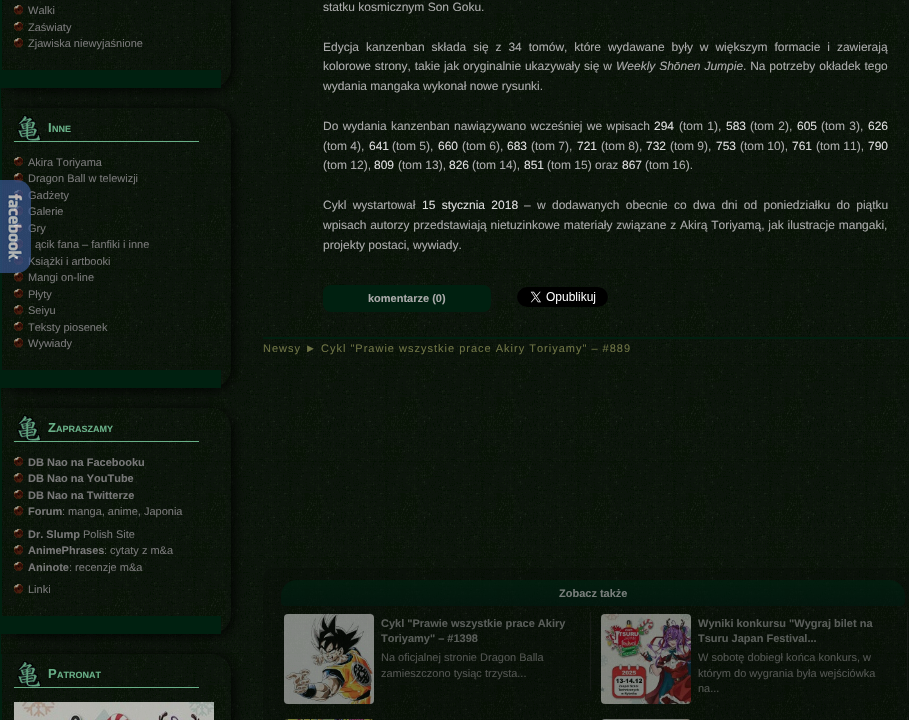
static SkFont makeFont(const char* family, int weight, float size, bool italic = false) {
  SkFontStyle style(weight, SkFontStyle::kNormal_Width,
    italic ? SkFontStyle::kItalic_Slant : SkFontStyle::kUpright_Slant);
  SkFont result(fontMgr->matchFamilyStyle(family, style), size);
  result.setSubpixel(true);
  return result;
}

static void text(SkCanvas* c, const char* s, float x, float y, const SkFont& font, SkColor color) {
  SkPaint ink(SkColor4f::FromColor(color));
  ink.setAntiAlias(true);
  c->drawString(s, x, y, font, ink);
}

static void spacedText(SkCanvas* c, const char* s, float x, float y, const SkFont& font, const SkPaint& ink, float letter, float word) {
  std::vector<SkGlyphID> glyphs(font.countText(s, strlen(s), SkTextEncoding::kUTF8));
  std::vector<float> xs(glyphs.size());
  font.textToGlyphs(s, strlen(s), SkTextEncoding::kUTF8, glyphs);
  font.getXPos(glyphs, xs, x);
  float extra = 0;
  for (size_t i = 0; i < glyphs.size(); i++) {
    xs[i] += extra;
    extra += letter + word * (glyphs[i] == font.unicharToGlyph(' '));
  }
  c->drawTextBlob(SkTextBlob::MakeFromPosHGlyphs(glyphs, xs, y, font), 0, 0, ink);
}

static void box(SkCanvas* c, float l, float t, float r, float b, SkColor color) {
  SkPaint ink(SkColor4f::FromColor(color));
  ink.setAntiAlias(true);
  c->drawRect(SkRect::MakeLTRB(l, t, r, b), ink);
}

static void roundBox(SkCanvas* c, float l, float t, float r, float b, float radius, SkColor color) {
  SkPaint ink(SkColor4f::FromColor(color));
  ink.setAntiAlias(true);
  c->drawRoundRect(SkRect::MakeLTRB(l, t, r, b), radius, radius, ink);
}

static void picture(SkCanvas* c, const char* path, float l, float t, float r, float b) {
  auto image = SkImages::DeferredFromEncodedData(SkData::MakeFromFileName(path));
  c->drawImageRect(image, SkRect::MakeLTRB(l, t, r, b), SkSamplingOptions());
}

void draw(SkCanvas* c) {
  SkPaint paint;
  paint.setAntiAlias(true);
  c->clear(0xffffffff);
  picture(c, "img_01.png", 1, 0, 909, 720);
  box(c, 0, 88, 1, 654, 0xff002010);
  c->save();
  c->clipPath(SkPathBuilder(SkPathFillType::kEvenOdd).moveTo(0, 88).lineTo(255, 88).lineTo(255, 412).lineTo(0, 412).close().moveTo(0, 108).lineTo(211, 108).cubicTo(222, 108, 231, 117, 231, 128).lineTo(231, 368).cubicTo(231, 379, 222, 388, 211, 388).lineTo(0, 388).close().detach(), true);
  paint.setColor(0xff000000);
  paint.setMaskFilter(SkMaskFilter::MakeBlur(kNormal_SkBlurStyle, 7));
  c->drawRoundRect(SkRect::MakeLTRB(2, 110, 233, 390), 20, 20, paint);
  paint.setMaskFilter(nullptr);
  c->restore();
  c->save();
  c->clipPath(SkPathBuilder(SkPathFillType::kEvenOdd).moveTo(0, 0).lineTo(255, 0).lineTo(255, 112).lineTo(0, 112).close().moveTo(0, -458).lineTo(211, -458).cubicTo(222, -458, 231, -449, 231, -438).lineTo(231, 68).cubicTo(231, 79, 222, 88, 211, 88).lineTo(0, 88).close().detach(), true);
  paint.setMaskFilter(SkMaskFilter::MakeBlur(kNormal_SkBlurStyle, 7));
  c->drawRoundRect(SkRect::MakeLTRB(2, -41, 233, 90), 20, 20, paint);
  paint.setMaskFilter(nullptr);
  c->restore();
  box(c, 1, 108, 2, 388, 0xff002010);
  picture(c, "img_08.png", 14, 173, 23, 183);
  SkFont face1 = makeFont("Liberation Sans", 400, 11);
  text(c, "Dragon Ball w telewizji", 28, 182, face1, 0xff777777);
  picture(c, "img_09.png", 14, 189, 23, 199);
  text(c, "Gadżety", 28, 199, face1, 0xff777777);
  picture(c, "img_10.png", 14, 206, 23, 216);
  text(c, "Galerie", 28, 215, face1, 0xff777777);
  picture(c, "img_11.png", 14, 222, 23, 232);
  text(c, "Gry", 28, 232, face1, 0xff777777);
  picture(c, "img_12.png", 14, 239, 23, 249);
  picture(c, "img_13.png", 14, 255, 23, 265);
  text(c, "Książki i artbooki", 28, 265, face1, 0xff777777);
  picture(c, "img_14.png", 14, 272, 23, 282);
  picture(c, "img_02.png", 0, 180, 31, 273);
  box(c, 2, 70, 221, 88, 0xff002010);
  box(c, 0, 0, 2, 88, 0xff002010);
  picture(c, "img_03.png", 14, 5, 23, 15);
  text(c, "Walki", 28, 14, face1, 0xff777777);
  picture(c, "img_04.png", 14, 21, 23, 31);
  text(c, "Zaświaty", 28, 31, face1, 0xff777777);
  picture(c, "img_05.png", 14, 38, 23, 48);
  text(c, "Zjawiska niewyjaśnione", 28, 47, face1, 0xff777777);
  box(c, 2, 370, 221, 388, 0xff002010);
  picture(c, "img_06.png", 17, 115, 41, 141);
  box(c, 14, 141, 199, 142, 0xff68af87);
  SkFont face2 = makeFont("Liberation Sans", 700, 13);
  text(c, "I", 48, 132, face2, 0xff68af87);
  SkFont face3 = makeFont("Liberation Sans", 700, 9);
  text(c, "NNE", 52, 132, face3, 0xff68af87);
  picture(c, "img_07.png", 14, 156, 23, 166);
  text(c, "Akira Toriyama", 28, 166, face1, 0xff777777);
  text(c, "ącik fana – fanfiki i inne", 35, 248, face1, 0xff777777);
  text(c, "Mangi on-line", 28, 281, face1, 0xff777777);
  picture(c, "img_15.png", 14, 288, 23, 298);
  text(c, "Płyty", 28, 298, face1, 0xff777777);
  picture(c, "img_16.png", 14, 305, 23, 315);
  text(c, "Seiyu", 28, 314, face1, 0xff777777);
  picture(c, "img_17.png", 14, 321, 23, 331);
  text(c, "Teksty piosenek", 28, 331, face1, 0xff777777);
  picture(c, "img_18.png", 14, 338, 23, 348);
  text(c, "Wywiady", 28, 347, face1, 0xff777777);
  c->save();
  c->clipPath(SkPathBuilder(SkPathFillType::kEvenOdd).moveTo(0, 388).lineTo(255, 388).lineTo(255, 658).lineTo(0, 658).close().moveTo(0, 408).lineTo(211, 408).cubicTo(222, 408, 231, 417, 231, 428).lineTo(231, 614).cubicTo(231, 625, 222, 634, 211, 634).lineTo(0, 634).close().detach(), true);
  paint.setMaskFilter(SkMaskFilter::MakeBlur(kNormal_SkBlurStyle, 7));
  c->drawRoundRect(SkRect::MakeLTRB(2, 410, 233, 636), 20, 20, paint);
  paint.setMaskFilter(nullptr);
  c->restore();
  box(c, 2, 616, 221, 634, 0xff002010);
  box(c, 1, 408, 2, 634, 0xff002010);
  picture(c, "img_19.png", 17, 415, 41, 441);
  box(c, 14, 441, 199, 442, 0xff68af87);
  text(c, "Z", 48, 432, face2, 0xff68af87);
  text(c, "APRASZAMY", 56, 432, face3, 0xff68af87);
  picture(c, "img_20.png", 14, 456, 23, 466);
  SkFont face4 = makeFont("Liberation Sans", 700, 11);
  text(c, "DB Nao na Facebooku", 28, 466, face4, 0xff777777);
  picture(c, "img_21.png", 14, 473, 23, 483);
  text(c, "DB Nao na YouTube", 28, 482, face4, 0xff777777);
  picture(c, "img_22.png", 14, 489, 23, 499);
  text(c, "DB Nao na Twitterze", 28, 499, face4, 0xff777777);
  picture(c, "img_23.png", 14, 506, 23, 516);
  text(c, "Forum", 28, 515, face4, 0xff777777);
  text(c, ": manga, anime, Japonia", 62, 515, face1, 0xff777777);
  picture(c, "img_24.png", 14, 528, 23, 538);
  text(c, "Dr. Slump", 28, 538, face4, 0xff777777);
  text(c, "Polish Site", 83, 538, face1, 0xff777777);
  picture(c, "img_25.png", 14, 545, 23, 555);
  text(c, "AnimePhrases", 28, 554, face4, 0xff777777);
  text(c, ": cytaty z m&a", 104, 554, face1, 0xff777777);
  picture(c, "img_26.png", 14, 561, 23, 571);
  text(c, "Aninote", 28, 571, face4, 0xff777777);
  text(c, ": recenzje m&a", 69, 571, face1, 0xff777777);
  picture(c, "img_27.png", 14, 584, 23, 594);
  text(c, "Linki", 28, 593, face1, 0xff777777);
  c->save();
  c->clipPath(SkPathBuilder(SkPathFillType::kEvenOdd).moveTo(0, 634).lineTo(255, 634).lineTo(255, 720).lineTo(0, 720).close().moveTo(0, 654).lineTo(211, 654).cubicTo(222, 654, 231, 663, 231, 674).lineTo(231, 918).cubicTo(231, 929, 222, 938, 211, 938).lineTo(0, 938).close().detach(), true);
  paint.setMaskFilter(SkMaskFilter::MakeBlur(kNormal_SkBlurStyle, 7));
  c->drawRoundRect(SkRect::MakeLTRB(2, 656, 233, 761), 20, 20, paint);
  paint.setMaskFilter(nullptr);
  c->restore();
  box(c, 0, 654, 2, 720, 0xff002010);
  picture(c, "img_28.png", 17, 661, 41, 687);
  box(c, 14, 687, 199, 688, 0xff68af87);
  text(c, "P", 48, 678, face2, 0xff68af87);
  text(c, "ATRONAT", 57, 678, face3, 0xff68af87);
  picture(c, "img_29.png", 14, 702, 214, 720);
  SkFont face5 = makeFont("Liberation Sans", 400, 12);
  text(c, "statku kosmicznym Son Goku.", 323, 11, face5, 0xffaaaaaa);
  paint.setColor(0xffaaaaaa);
  spacedText(c, "Edycja kanzenban składa się z 34 tomów, które wydawane były w większym formacie i zawierają", 323, 51, face5, paint, 0, 3.6f);
  spacedText(c, "kolorowe strony, takie jak oryginalnie ukazywały się w", 323, 70, face5, paint, 0, 0.5f);
  SkFont face6 = makeFont("Liberation Sans", 400, 12, true);
  spacedText(c, "Weekly Shōnen Jumpie", 616, 70, face6, paint, 0, 0.5f);
  spacedText(c, ". Na potrzeby okładek tego", 743, 70, face5, paint, 0, 0.5f);
  text(c, "wydania mangaka wykonał nowe rysunki.", 323, 90, face5, 0xffaaaaaa);
  spacedText(c, "Do wydania kanzenban nawiązywano wcześniej we wpisach", 323, 130, face5, paint, 0, 1);
  text(c, "294", 654, 130, face5, 0xffdddddd);
  spacedText(c, "(tom 1),", 679, 130, face5, paint, 0, 1);
  text(c, "583", 726, 130, face5, 0xffdddddd);
  spacedText(c, "(tom 2),", 750, 130, face5, paint, 0, 1);
  text(c, "605", 797, 130, face5, 0xffdddddd);
  spacedText(c, "(tom 3),", 821, 130, face5, paint, 0, 1);
  text(c, "626", 868, 130, face5, 0xffdddddd);
  text(c, "(tom 4),", 323, 150, face5, 0xffaaaaaa);
  text(c, "641", 369, 150, face5, 0xffdddddd);
  text(c, "(tom 5),", 392, 150, face5, 0xffaaaaaa);
  text(c, "660", 438, 150, face5, 0xffdddddd);
  text(c, "(tom 6),", 462, 150, face5, 0xffaaaaaa);
  text(c, "683", 507, 150, face5, 0xffdddddd);
  text(c, "(tom 7),", 531, 150, face5, 0xffaaaaaa);
  text(c, "721", 577, 150, face5, 0xffdddddd);
  text(c, "(tom 8),", 601, 150, face5, 0xffaaaaaa);
  text(c, "732", 646, 150, face5, 0xffdddddd);
  text(c, "(tom 9),", 670, 150, face5, 0xffaaaaaa);
  text(c, "753", 716, 150, face5, 0xffdddddd);
  text(c, "(tom 10),", 740, 150, face5, 0xffaaaaaa);
  text(c, "761", 792, 150, face5, 0xffdddddd);
  text(c, "(tom 11),", 816, 150, face5, 0xffaaaaaa);
  text(c, "790", 868, 150, face5, 0xffdddddd);
  text(c, "(tom 12),", 323, 169, face5, 0xffaaaaaa);
  text(c, "809", 374, 169, face5, 0xffdddddd);
  text(c, "(tom 13),", 398, 169, face5, 0xffaaaaaa);
  text(c, "826", 449, 169, face5, 0xffdddddd);
  text(c, "(tom 14),", 472, 169, face5, 0xffaaaaaa);
  text(c, "851", 524, 169, face5, 0xffdddddd);
  text(c, "(tom 15) oraz", 547, 169, face5, 0xffaaaaaa);
  text(c, "867", 622, 169, face5, 0xffdddddd);
  text(c, "(tom 16).", 645, 169, face5, 0xffaaaaaa);
  spacedText(c, "Cykl wystartował", 323, 209, face5, paint, 0, 3);
  paint.setColor(0xffdddddd);
  spacedText(c, "15 stycznia 2018", 422, 209, face5, paint, 0, 3);
  paint.setColor(0xffaaaaaa);
  spacedText(c, "– w dodawanych obecnie co dwa dni od poniedziałku do piątku", 524, 209, face5, paint, 0, 3);
  spacedText(c, "wpisach autorzy przedstawiają nietuzinkowe materiały związane z Akirą Toriyamą, jak ilustracje mangaki,", 323, 229, face5, paint, 0, 0.5f);
  text(c, "projekty postaci, wywiady.", 323, 249, face5, 0xffaaaaaa);
  roundBox(c, 323, 285, 491, 312, 8, 0xff002010);
  text(c, "komentarze (0)", 368, 302, face4, 0xffaaaaaa);
  picture(c, "img_30.png", 517, 287, 608, 307);
  box(c, 263, 337, 909, 339, 0xff002010);
  paint.setColor(0xff6d7244);
  spacedText(c, "Newsy ► Cykl \"Prawie wszystkie prace Akiry Toriyamy\" – #889", 263, 352, face1, paint, 1, 0);
  picture(c, "img_31.png", 263, 568, 909, 720);
  {
    const SkColor colors[] = {0xb3002010, 0xb3001810};
    const float stops[] = {0, 1};
    const SkPoint ends[] = {{593, 580}, {593, 606}};
    paint.setShader(SkGradientShader::MakeLinear(ends, colors, stops, 2, SkTileMode::kClamp));
    paint.setAlpha(255);
  }
  c->drawPath(SkPathBuilder().moveTo(297, 580).lineTo(889, 580).cubicTo(898, 580, 905, 587, 905, 596).lineTo(905, 602).cubicTo(905, 604, 903, 606, 901, 606).lineTo(285, 606).cubicTo(283, 606, 281, 604, 281, 602).lineTo(281, 596).cubicTo(281, 587, 288, 580, 297, 580).close().detach(), paint);
  text(c, "Zobacz także", 559, 597, face4, 0xff787e7b);
  box(c, 590, 612, 591, 691, 0x7d222222);
  picture(c, "img_32.png", 284, 614, 374, 704);
  text(c, "Cykl \"Prawie wszystkie prace Akiry", 381, 627, face4, 0xff585c58);
  text(c, "Toriyamy\" – #1398", 381, 642, face4, 0xff585c58);
  text(c, "Na oficjalnej stronie Dragon Balla", 381, 661, face1, 0xff50534f);
  text(c, "zamieszczono tysiąc trzysta...", 381, 677, face1, 0xff50534f);
  box(c, 907, 612, 908, 691, 0x7d222222);
  picture(c, "img_33.png", 601, 614, 691, 704);
  text(c, "Wyniki konkursu \"Wygraj bilet na", 698, 627, face4, 0xff585c58);
  text(c, "Tsuru Japan Festival...", 698, 642, face4, 0xff585c58);
  text(c, "W sobotę dobiegł końca konkurs, w", 698, 661, face1, 0xff50534f);
  text(c, "którym do wygrania była wejściówka", 698, 677, face1, 0xff50534f);
  text(c, "na...", 698, 692, face1, 0xff50534f);
  box(c, 590, 717, 591, 720, 0x7d222222);
  picture(c, "img_34.png", 285, 719, 373, 720);
  box(c, 907, 717, 908, 720, 0xff171c17);
  picture(c, "img_35.png", 602, 719, 690, 720);
}
